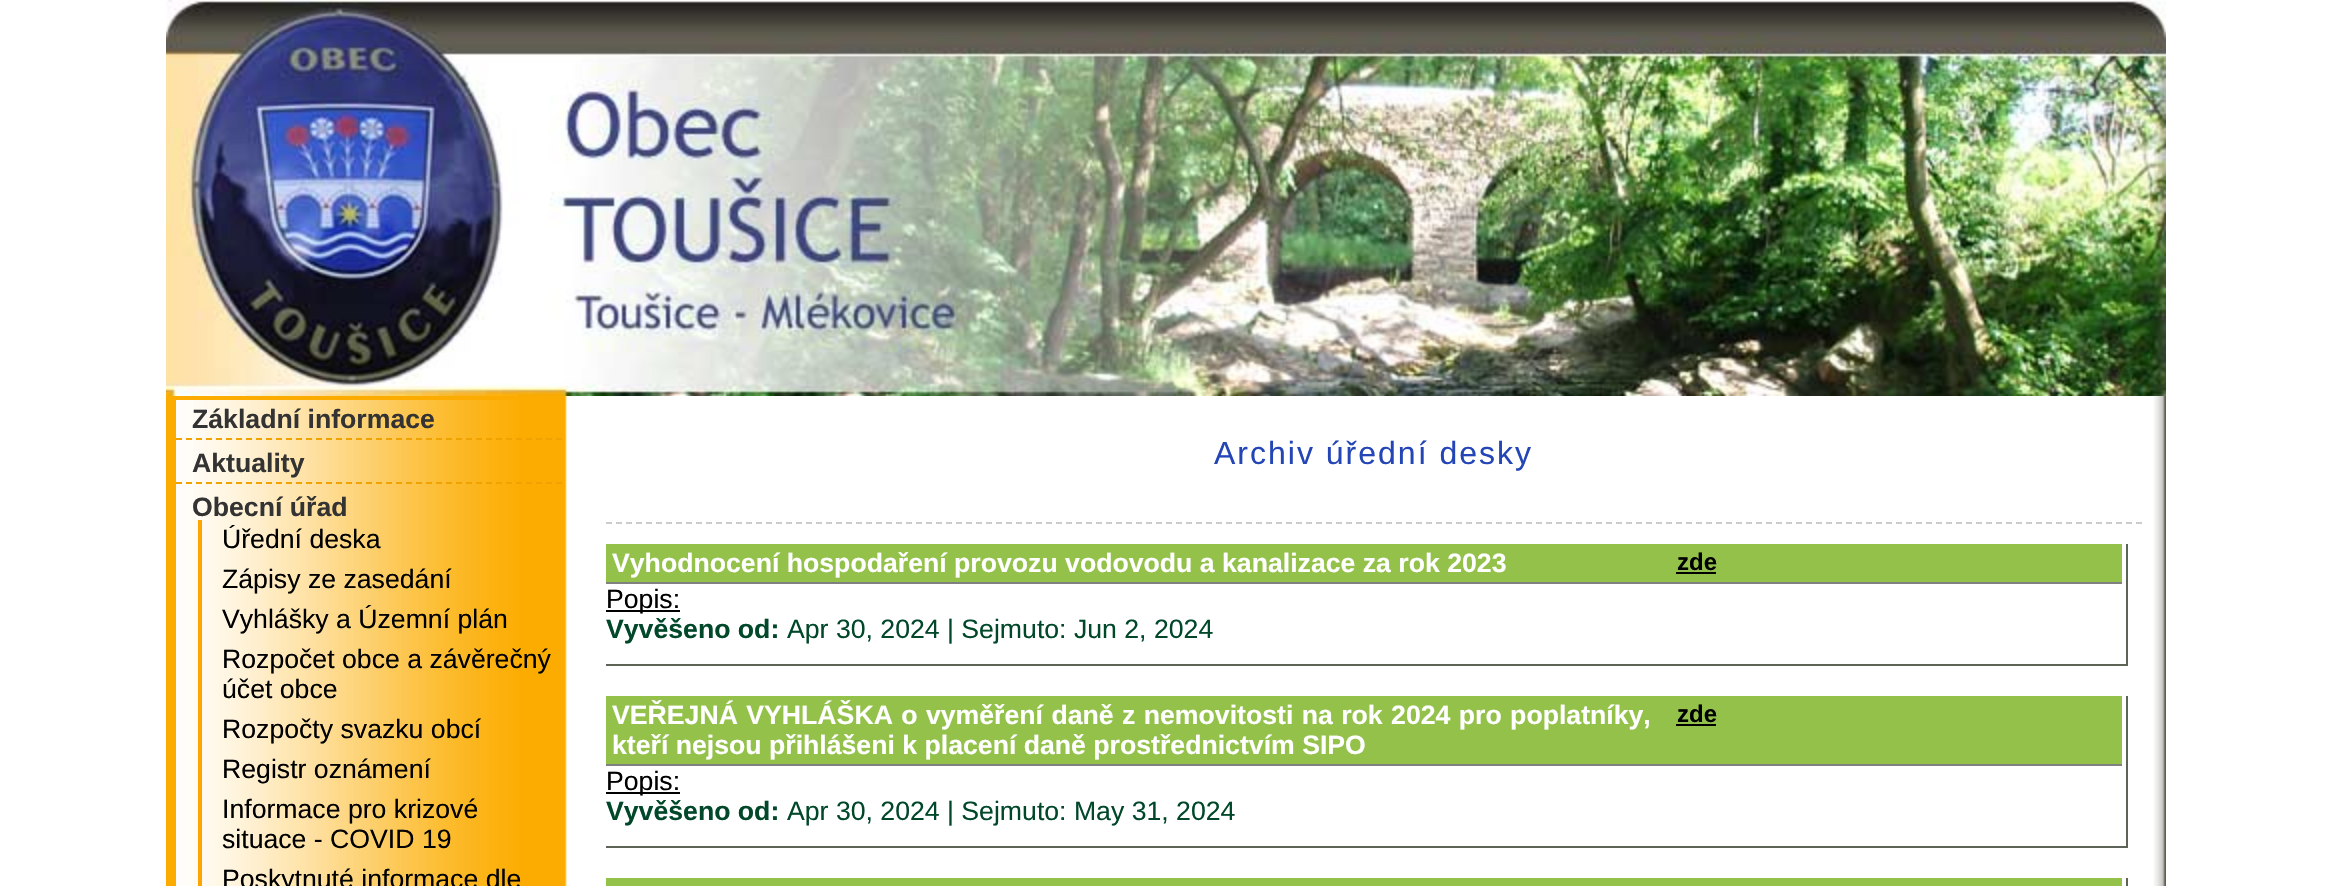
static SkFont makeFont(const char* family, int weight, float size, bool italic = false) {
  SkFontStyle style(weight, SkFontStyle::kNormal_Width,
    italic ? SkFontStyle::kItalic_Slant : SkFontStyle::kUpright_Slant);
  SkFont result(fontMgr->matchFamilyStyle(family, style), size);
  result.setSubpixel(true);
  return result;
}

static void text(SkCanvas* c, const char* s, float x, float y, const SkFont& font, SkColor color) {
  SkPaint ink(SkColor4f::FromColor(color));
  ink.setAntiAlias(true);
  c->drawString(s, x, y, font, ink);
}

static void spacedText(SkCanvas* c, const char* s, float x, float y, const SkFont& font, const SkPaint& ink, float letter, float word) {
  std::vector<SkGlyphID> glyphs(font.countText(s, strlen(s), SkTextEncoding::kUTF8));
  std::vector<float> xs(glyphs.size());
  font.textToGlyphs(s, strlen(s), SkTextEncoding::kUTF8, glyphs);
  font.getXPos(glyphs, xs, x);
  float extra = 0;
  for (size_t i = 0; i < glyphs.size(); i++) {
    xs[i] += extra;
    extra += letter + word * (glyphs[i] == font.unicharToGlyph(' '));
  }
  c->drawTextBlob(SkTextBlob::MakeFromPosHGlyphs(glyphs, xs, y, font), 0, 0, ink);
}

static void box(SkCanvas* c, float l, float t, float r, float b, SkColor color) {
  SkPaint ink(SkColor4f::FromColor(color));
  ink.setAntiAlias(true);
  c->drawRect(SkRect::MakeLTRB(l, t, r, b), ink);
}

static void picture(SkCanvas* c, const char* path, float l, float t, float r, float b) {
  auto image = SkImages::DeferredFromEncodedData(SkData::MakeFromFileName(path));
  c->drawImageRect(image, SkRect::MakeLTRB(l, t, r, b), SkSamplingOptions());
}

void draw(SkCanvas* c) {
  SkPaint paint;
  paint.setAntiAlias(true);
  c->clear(0xffffffff);
  picture(c, "img_01.png", 166, 396, 2166, 886);
  picture(c, "img_02.png", 166, 0, 2166, 396);
  picture(c, "img_03.png", 176, 400, 519, 886);
  paint.setStyle(SkPaint::kStroke_Style);
  paint.setStrokeWidth(2);
  paint.setColor(0xfff0a300);
  paint.setPathEffect(SkDashPathEffect::Make({{6, 4}}, 0));
  c->drawPath(SkPathBuilder().moveTo(176, 439).lineTo(562, 439).detach(), paint);
  paint.setPathEffect(nullptr);
  SkFont face1 = makeFont("Liberation Sans", 700, 26.65f);
  text(c, "Základní informace", 192, 428, face1, 0xff333333);
  paint.setPathEffect(SkDashPathEffect::Make({{6, 4}}, 0));
  c->drawPath(SkPathBuilder().moveTo(176, 483).lineTo(562, 483).detach(), paint);
  paint.setPathEffect(nullptr);
  text(c, "Aktuality", 192, 472, face1, 0xff333333);
  text(c, "Obecní úřad", 192, 516, face1, 0xff333333);
  box(c, 198, 520, 202, 886, 0xffffa500);
  SkFont face2 = makeFont("Liberation Sans", 400, 26.65f);
  text(c, "Úřední deska", 222, 548, face2, 0xff000000);
  text(c, "Zápisy ze zasedání", 222, 588, face2, 0xff000000);
  text(c, "Vyhlášky a Územní plán", 222, 628, face2, 0xff000000);
  text(c, "Rozpočet obce a závěrečný", 222, 668, face2, 0xff000000);
  text(c, "účet obce", 222, 698, face2, 0xff000000);
  text(c, "Rozpočty svazku obcí", 222, 738, face2, 0xff000000);
  text(c, "Registr oznámení", 222, 778, face2, 0xff000000);
  text(c, "Informace pro krizové", 222, 818, face2, 0xff000000);
  text(c, "situace - COVID 19", 222, 848, face2, 0xff000000);
  text(c, "Poskytnuté informace dle", 222, 888, face2, 0xff000000);
  paint.setColor(0xffcccccc);
  paint.setPathEffect(SkDashPathEffect::Make({{6, 4}}, 0));
  c->drawPath(SkPathBuilder().moveTo(606, 523).lineTo(2142, 523).detach(), paint);
  paint.setPathEffect(nullptr);
  SkFont face3 = makeFont("Liberation Sans", 400, 32);
  paint.setStyle(SkPaint::kFill_Style);
  paint.setColor(0xff2445b6);
  spacedText(c, "Archiv úřední desky", 1214, 464, face3, paint, 2, 0);
  box(c, 2126, 544, 2128, 666, 0xff5d6356);
  box(c, 606, 664, 2128, 666, 0xff5d6356);
  box(c, 606, 544, 2122, 582, 0xff93c14a);
  box(c, 606, 582, 2122, 584, 0xff808080);
  text(c, "Vyhodnocení hospodaření provozu vodovodu a kanalizace za rok 2023", 612, 572, face1, 0xffffffff);
  SkFont face4 = makeFont("Liberation Sans", 700, 24);
  text(c, "zde", 1677, 570, face4, 0xff000000);
  box(c, 1676, 572, 1716, 574, 0xff000000);
  box(c, 606, 610, 680, 612, 0xff000000);
  text(c, "Popis:", 606, 608, face2, 0xff000000);
  text(c, "Vyvěšeno od:", 606, 638, face1, 0xff01482a);
  text(c, "Apr 30, 2024 | Sejmuto: Jun 2, 2024", 787, 638, face2, 0xff01482a);
  box(c, 2126, 696, 2128, 848, 0xff5d6356);
  box(c, 606, 846, 2128, 848, 0xff5d6356);
  box(c, 606, 696, 2122, 764, 0xff93c14a);
  box(c, 606, 764, 2122, 766, 0xff808080);
  paint.setColor(0xffffffff);
  spacedText(c, "VEŘEJNÁ VYHLÁŠKA o vyměření daně z nemovitosti na rok 2024 pro poplatníky,", 612, 724, face1, paint, 0, 1);
  text(c, "kteří nejsou přihlášeni k placení daně prostřednictvím SIPO", 612, 754, face1, 0xffffffff);
  text(c, "zde", 1677, 722, face4, 0xff000000);
  box(c, 1676, 724, 1716, 726, 0xff000000);
  box(c, 606, 792, 680, 794, 0xff000000);
  text(c, "Popis:", 606, 790, face2, 0xff000000);
  text(c, "Vyvěšeno od:", 606, 820, face1, 0xff01482a);
  text(c, "Apr 30, 2024 | Sejmuto: May 31, 2024", 787, 820, face2, 0xff01482a);
  box(c, 2126, 878, 2128, 886, 0xff5d6356);
  box(c, 606, 878, 2122, 886, 0xff93c14a);
}
